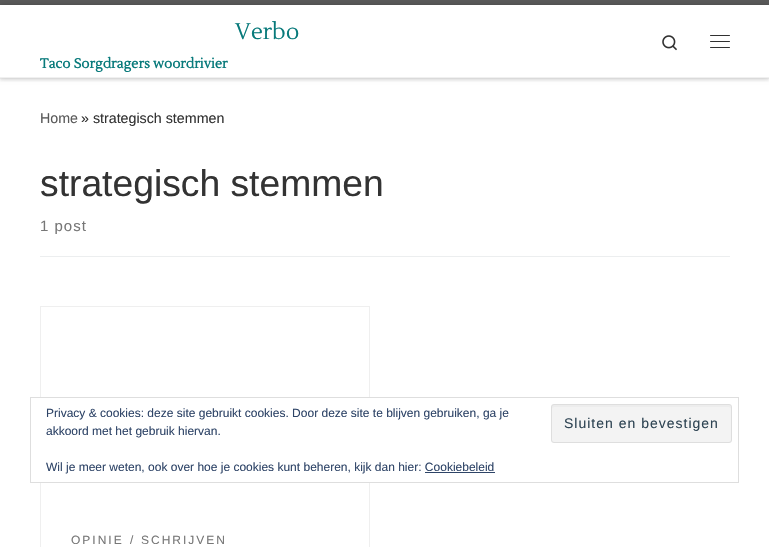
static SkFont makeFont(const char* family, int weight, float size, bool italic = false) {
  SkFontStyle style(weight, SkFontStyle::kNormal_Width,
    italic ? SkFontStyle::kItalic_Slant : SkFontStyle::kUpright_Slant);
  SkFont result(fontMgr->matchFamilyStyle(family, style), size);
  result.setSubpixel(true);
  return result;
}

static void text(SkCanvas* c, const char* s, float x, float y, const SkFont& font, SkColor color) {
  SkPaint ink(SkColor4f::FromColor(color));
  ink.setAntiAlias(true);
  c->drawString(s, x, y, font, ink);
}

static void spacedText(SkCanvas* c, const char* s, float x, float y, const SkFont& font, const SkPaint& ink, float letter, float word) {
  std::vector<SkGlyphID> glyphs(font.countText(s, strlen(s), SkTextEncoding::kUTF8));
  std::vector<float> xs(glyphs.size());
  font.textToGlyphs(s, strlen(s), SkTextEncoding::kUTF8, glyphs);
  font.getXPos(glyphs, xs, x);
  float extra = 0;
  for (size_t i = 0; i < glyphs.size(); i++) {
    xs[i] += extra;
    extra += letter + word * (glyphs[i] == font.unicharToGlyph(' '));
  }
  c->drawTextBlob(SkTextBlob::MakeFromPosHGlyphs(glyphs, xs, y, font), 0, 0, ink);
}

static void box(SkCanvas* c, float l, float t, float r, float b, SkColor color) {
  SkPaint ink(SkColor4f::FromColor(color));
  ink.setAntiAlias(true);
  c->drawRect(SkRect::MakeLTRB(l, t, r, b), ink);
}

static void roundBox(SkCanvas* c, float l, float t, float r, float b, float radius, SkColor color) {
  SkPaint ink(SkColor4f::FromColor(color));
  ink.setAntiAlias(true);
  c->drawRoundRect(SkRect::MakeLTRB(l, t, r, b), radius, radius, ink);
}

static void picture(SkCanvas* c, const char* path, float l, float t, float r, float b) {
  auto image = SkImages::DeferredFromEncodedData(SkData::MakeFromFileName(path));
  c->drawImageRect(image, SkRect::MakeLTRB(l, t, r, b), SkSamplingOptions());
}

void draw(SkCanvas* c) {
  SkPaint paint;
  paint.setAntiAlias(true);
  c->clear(0xffffffff);
  c->save();
  c->clipRect(SkRect::MakeLTRB(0, 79, 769, 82));
  paint.setColor(0x14666666);
  paint.setMaskFilter(SkMaskFilter::MakeBlur(kNormal_SkBlurStyle, 1));
  c->drawRect(SkRect::MakeLTRB(0, 2, 769, 81), paint);
  paint.setMaskFilter(nullptr);
  c->restore();
  box(c, 0, 0, 769, 5, 0xff5a5a5a);
  box(c, 0, 78, 769, 79, 0xffefefef);
  c->save();
  c->clipPath(SkPathBuilder(SkPathFillType::kEvenOdd).moveTo(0, 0).lineTo(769, 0).lineTo(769, 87).lineTo(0, 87).close().moveTo(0, 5).lineTo(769, 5).lineTo(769, 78).lineTo(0, 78).close().detach(), true);
  paint.setColor(0x33000000);
  paint.setMaskFilter(SkMaskFilter::MakeBlur(kNormal_SkBlurStyle, 2.5f));
  c->drawRect(SkRect::MakeLTRB(0, 5, 769, 78), paint);
  paint.setMaskFilter(nullptr);
  c->restore();
  SkFont face1 = makeFont("Lustria", 400, 22.5f);
  text(c, "Verbo", 235, 39, face1, 0xff087a7b);
  c->save();
  c->clipRect(SkRect::MakeLTRB(40, 5, 306, 77));
  SkFont face2 = makeFont("Lustria", 700, 13.5f);
  text(c, "Taco Sorgdragers woordrivier", 40, 68, face2, 0xff087a7b);
  c->restore();
  picture(c, "img_01.png", 662, 35, 677, 51);
  roundBox(c, 710, 35, 730, 36, 0.5f, 0xff313131);
  roundBox(c, 710, 41, 730, 42, 0.5f, 0xff313131);
  roundBox(c, 710, 47, 730, 48, 0.5f, 0xff313131);
  box(c, 0, 77, 769, 78, 0xfff0f0f0);
  SkFont face3 = makeFont("Liberation Sans", 400, 14.25f);
  text(c, "Home", 40, 123, face3, 0xff5a5a5a);
  text(c, "» strategisch stemmen", 81, 123, face3, 0xff333333);
  SkFont face4 = makeFont("Liberation Sans", 400, 37.25f);
  text(c, "strategisch stemmen", 40, 196, face4, 0xff333333);
  SkFont face5 = makeFont("Liberation Sans", 400, 15);
  paint.setColor(0xff777777);
  spacedText(c, "1 post", 40, 231, face5, paint, 1, 0);
  box(c, 40, 256, 730, 257, 0xffeceeef);
  paint.setStyle(SkPaint::kStroke_Style);
  paint.setStrokeWidth(1);
  paint.setColor(0xffefefef);
  c->drawRect(SkRect::MakeLTRB(40.5f, 306.5f, 369.5f, 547.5f), paint);
  SkFont face6 = makeFont("Liberation Sans", 400, 12);
  paint.setStyle(SkPaint::kFill_Style);
  paint.setColor(0xff777777);
  spacedText(c, "OPINIE", 71, 544, face6, paint, 2, 0);
  spacedText(c, "/", 130, 544, face6, paint, 2, 0);
  spacedText(c, "SCHRIJVEN", 141, 544, face6, paint, 2, 0);
  box(c, 40, 398, 370, 482, 0xffffffff);
  paint.setStyle(SkPaint::kStroke_Style);
  paint.setColor(0xffdedede);
  c->drawRect(SkRect::MakeLTRB(30.5f, 397.5f, 738.5f, 482.5f), paint);
  text(c, "Privacy & cookies: deze site gebruikt cookies. Door deze site te blijven gebruiken, ga je", 46, 417, face6, 0xff2e4467);
  text(c, "akkoord met het gebruik hiervan.", 46, 435, face6, 0xff2e4467);
  roundBox(c, 551, 404, 732, 443, 3, 0xfff3f3f3);
  paint.setStyle(SkPaint::kFill_Style);
  paint.setColor(0xffededed);
  c->drawPath(SkPathBuilder().moveTo(554, 407).lineTo(729, 407).cubicTo(730, 407, 731, 408, 731, 409).cubicTo(731, 408, 731, 405, 729, 405).lineTo(554, 405).cubicTo(552, 405, 552, 407, 552, 409).cubicTo(552, 408, 553, 407, 554, 407).close().detach(), paint);
  paint.setStyle(SkPaint::kStroke_Style);
  paint.setColor(0xffdedede);
  c->drawRoundRect(SkRect::MakeLTRB(551.5f, 404.5f, 731.5f, 442.5f), 2.5f, 2.5f, paint);
  SkFont face7 = makeFont("Liberation Sans", 400, 14);
  paint.setStyle(SkPaint::kFill_Style);
  paint.setColor(0xff2e4453);
  spacedText(c, "Sluiten en bevestigen", 564, 428, face7, paint, 1, 0);
  text(c, "Wil je meer weten, ook over hoe je cookies kunt beheren, kijk dan hier: Cookiebeleid", 46, 471, face6, 0xff2e4467);
  box(c, 425, 472, 495, 473, 0xff2e4467);
}
